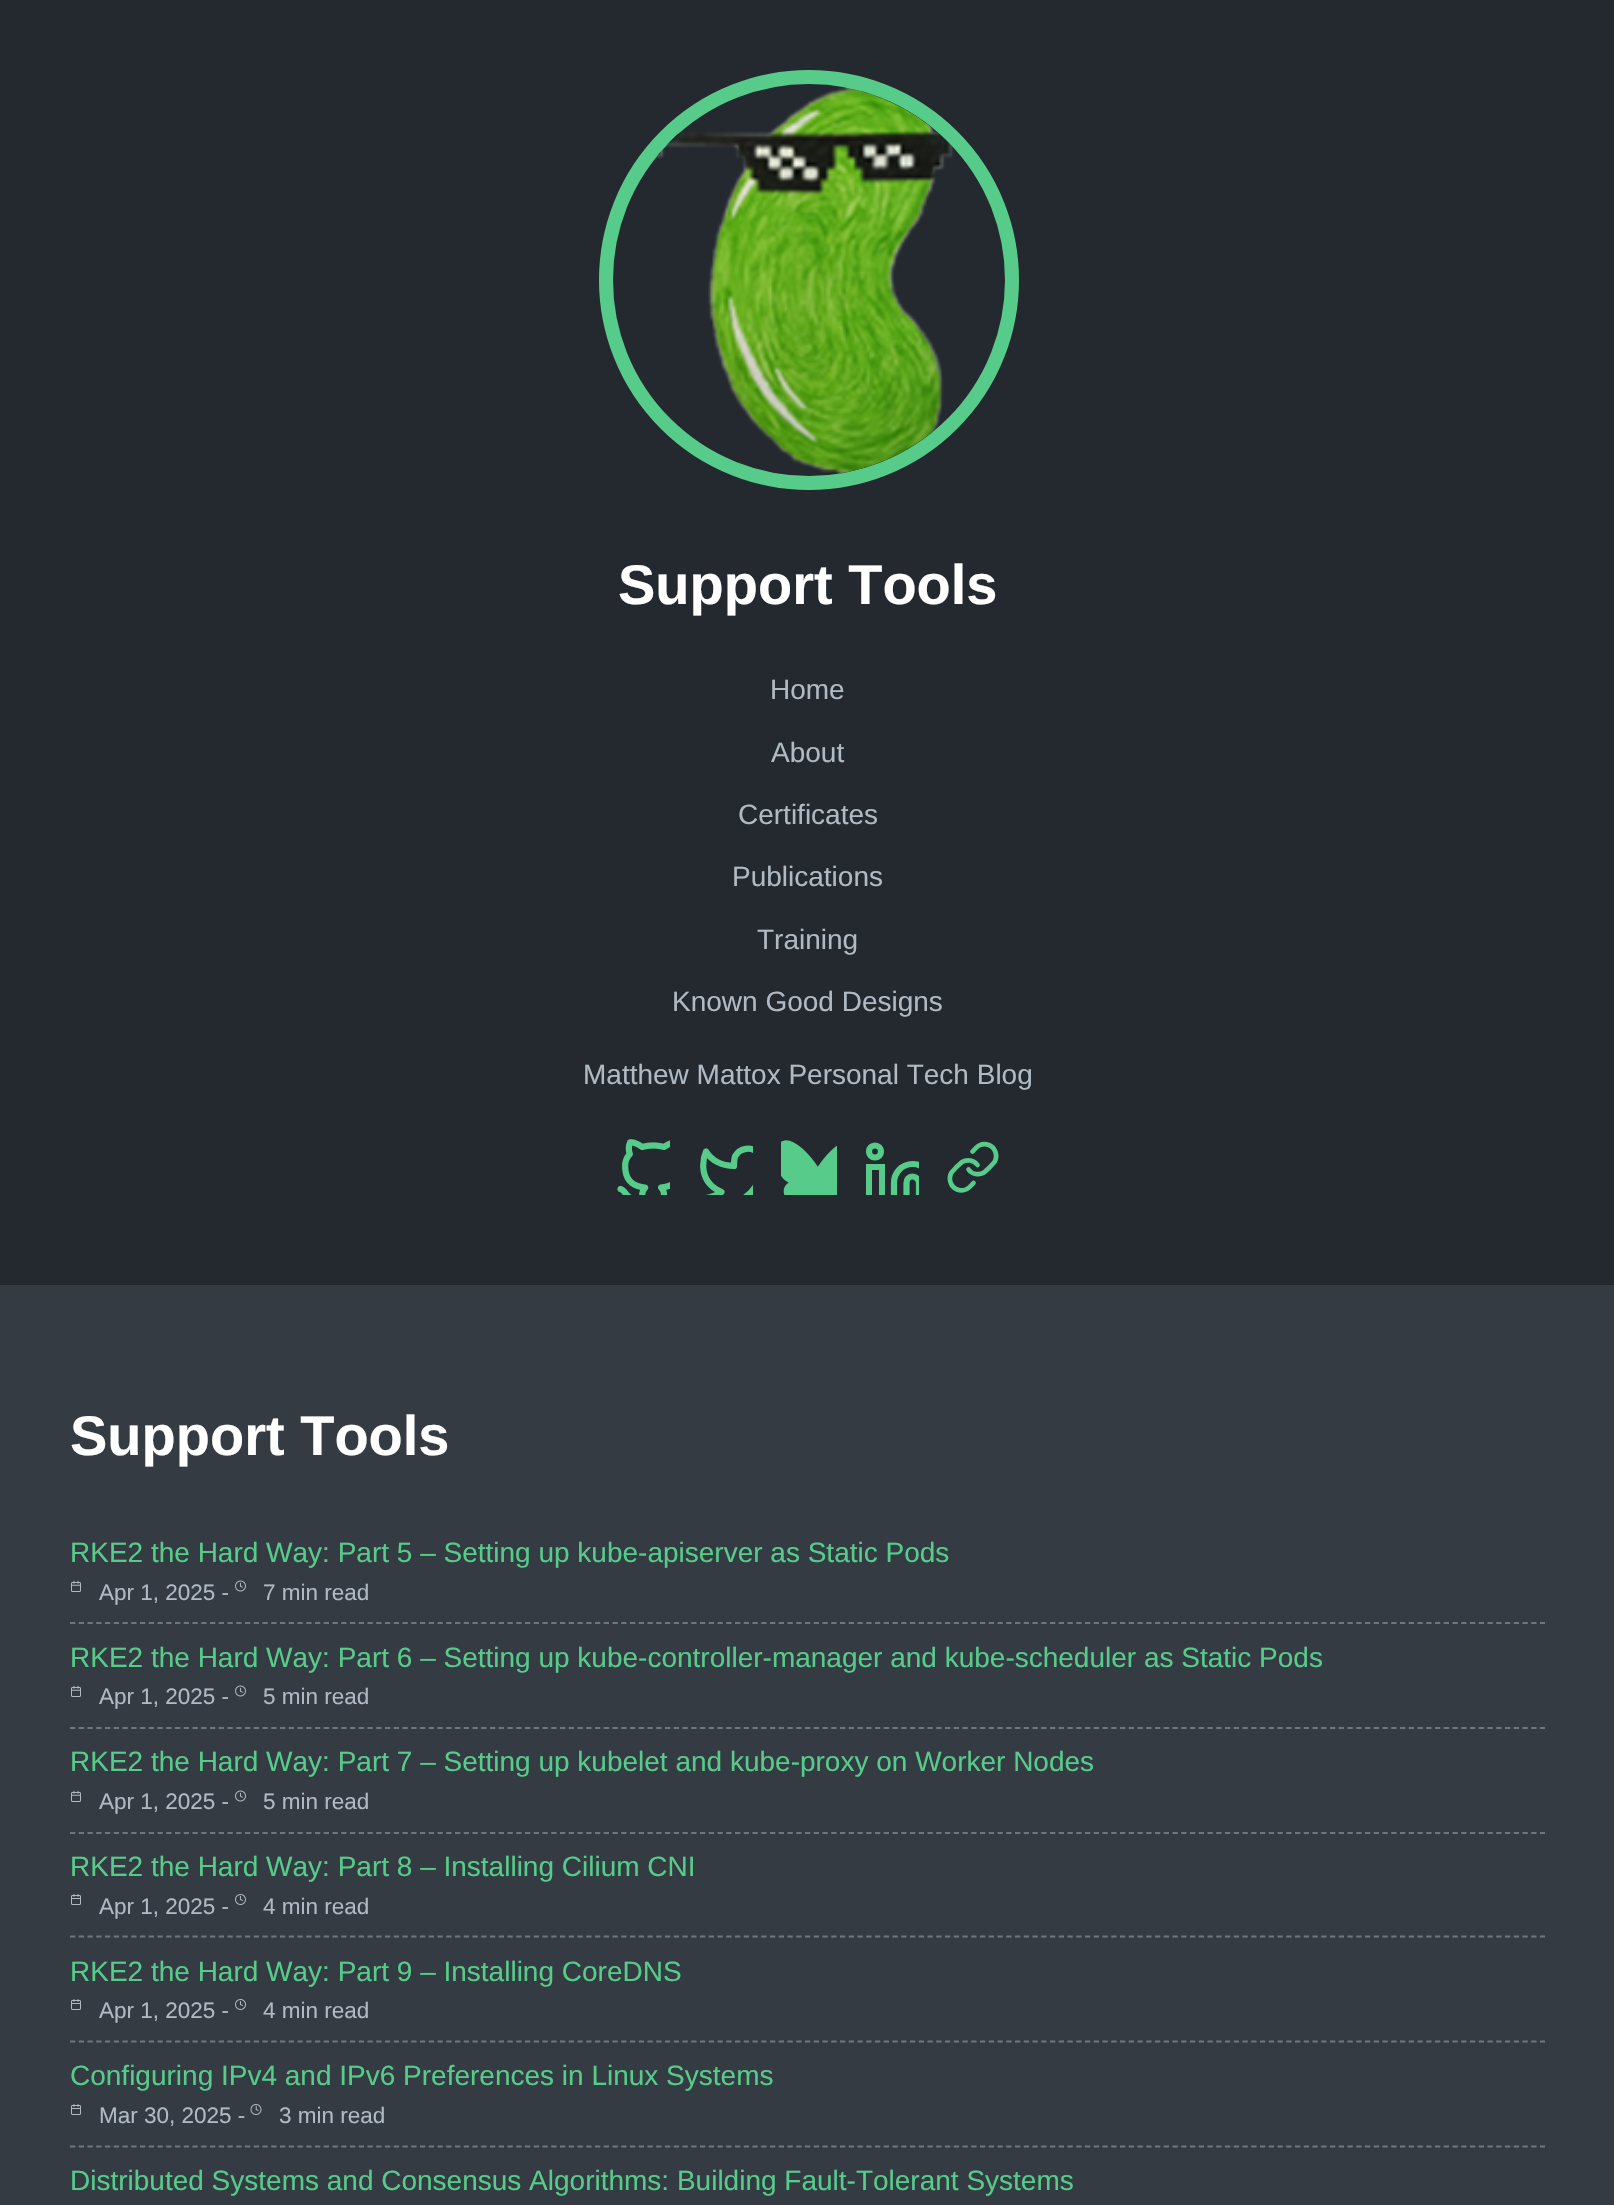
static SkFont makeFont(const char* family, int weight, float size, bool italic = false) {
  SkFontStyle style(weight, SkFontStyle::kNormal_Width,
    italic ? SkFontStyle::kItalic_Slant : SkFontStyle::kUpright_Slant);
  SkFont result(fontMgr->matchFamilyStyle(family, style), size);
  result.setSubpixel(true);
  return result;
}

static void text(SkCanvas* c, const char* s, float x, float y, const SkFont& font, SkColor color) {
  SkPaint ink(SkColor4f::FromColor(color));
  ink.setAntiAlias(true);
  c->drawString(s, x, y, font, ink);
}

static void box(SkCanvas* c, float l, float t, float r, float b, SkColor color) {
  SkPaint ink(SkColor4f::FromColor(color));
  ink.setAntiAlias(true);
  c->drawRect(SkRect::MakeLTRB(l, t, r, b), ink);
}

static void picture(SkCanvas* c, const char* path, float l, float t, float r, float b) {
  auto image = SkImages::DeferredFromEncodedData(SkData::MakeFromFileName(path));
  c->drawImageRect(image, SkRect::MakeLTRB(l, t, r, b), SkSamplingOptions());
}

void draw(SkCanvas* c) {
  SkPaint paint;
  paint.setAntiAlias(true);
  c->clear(0xff353b43);
  box(c, 0, 0, 1614, 1285, 0xff242930);
  paint.setStyle(SkPaint::kStroke_Style);
  paint.setStrokeWidth(14);
  paint.setColor(0xff57cc8a);
  c->drawCircle(809, 280, 203, paint);
  picture(c, "img_01.png", 655, 87, 953, 474);
  SkFont face1 = makeFont("Liberation Sans", 700, 56);
  text(c, "Support Tools", 618, 604, face1, 0xffffffff);
  SkFont face2 = makeFont("Liberation Sans", 400, 28);
  text(c, "Home", 770, 699, face2, 0xffafbac4);
  text(c, "About", 771, 762, face2, 0xffafbac4);
  text(c, "Certificates", 738, 824, face2, 0xffafbac4);
  text(c, "Publications", 732, 886, face2, 0xffafbac4);
  text(c, "Training", 757, 949, face2, 0xffafbac4);
  text(c, "Known Good Designs", 672, 1011, face2, 0xffafbac4);
  text(c, "Matthew Mattox Personal Tech Blog", 583, 1084, face2, 0xffafbac4);
  picture(c, "img_02.png", 617, 1139, 670, 1195);
  c->save();
  c->clipRect(SkRect::MakeLTRB(697, 1139, 753, 1195));
  paint.setStrokeWidth(6.2f);
  paint.setStrokeCap(SkPaint::kRound_Cap);
  paint.setStrokeJoin(SkPaint::kRound_Join);
  c->drawPath(SkPathBuilder().moveTo(768, 1148.5f).cubicTo(765, 1150.5f, 762, 1152.5f, 758.5f, 1153.5f).cubicTo(752, 1146, 739.5f, 1147.5f, 735, 1156.5f).cubicTo(734, 1159.5f, 734, 1162.5f, 734, 1166).cubicTo(722.5f, 1166, 712, 1161, 706, 1151.5f).cubicTo(706, 1151.5f, 693.5f, 1179.5f, 721.5f, 1192).cubicTo(715, 1196.5f, 707.5f, 1198.5f, 699.5f, 1198.5f).cubicTo(727.5f, 1214, 762, 1198.5f, 762, 1162.5f).lineTo(761.5f, 1160).cubicTo(765, 1157, 767, 1153, 768, 1148.5f).close().detach(), paint);
  c->restore();
  picture(c, "img_03.png", 781, 1140, 837, 1195);
  c->save();
  c->clipRect(SkRect::MakeLTRB(863, 1139, 919, 1195));
  c->drawPath(SkPathBuilder().moveTo(912.5f, 1164).cubicTo(923, 1164, 931, 1172.5f, 931, 1183).lineTo(931, 1204.5f).lineTo(919, 1204.5f).lineTo(919, 1183).cubicTo(919, 1179.5f, 916, 1176.5f, 912.5f, 1176.5f).cubicTo(909, 1176.5f, 906.5f, 1179.5f, 906.5f, 1183).lineTo(906.5f, 1204.5f).lineTo(894, 1204.5f).lineTo(894, 1183).cubicTo(894, 1172.5f, 902, 1164, 912.5f, 1164).close().detach(), paint);
  paint.setStrokeWidth(6);
  paint.setStrokeCap(SkPaint::kButt_Cap);
  paint.setStrokeJoin(SkPaint::kMiter_Join);
  c->drawRect(SkRect::MakeLTRB(869, 1167, 882, 1205), paint);
  c->restore();
  paint.setStrokeWidth(6.2f);
  c->drawCircle(875, 1151.5f, 6, paint);
  paint.setStrokeWidth(4.7f);
  paint.setStrokeCap(SkPaint::kRound_Cap);
  paint.setStrokeJoin(SkPaint::kRound_Join);
  c->drawPath(SkPathBuilder().moveTo(968.5f, 1169.5f).cubicTo(972, 1174.5f, 979, 1175.5f, 984, 1172.5f).lineTo(989.5f, 1167.5f).lineTo(994.5f, 1162).cubicTo(998, 1156, 995.5f, 1147.5f, 989, 1145).cubicTo(981.5f, 1142, 977, 1146.5f, 972.5f, 1151.5f).moveTo(977.5f, 1165).cubicTo(974, 1160, 967, 1159, 962, 1162).lineTo(956.5f, 1167).lineTo(951.5f, 1172.5f).cubicTo(948, 1178.5f, 950.5f, 1187, 957, 1189.5f).cubicTo(964.5f, 1192.5f, 969, 1188, 973.5f, 1183).detach(), paint);
  text(c, "Support Tools", 70, 1455, face1, 0xffffffff);
  paint.setStrokeWidth(1.8f);
  paint.setStrokeCap(SkPaint::kButt_Cap);
  paint.setStrokeJoin(SkPaint::kMiter_Join);
  paint.setColor(0xff72767b);
  paint.setPathEffect(SkDashPathEffect::Make({{5.25f, 3.5f}}, 0));
  c->drawPath(SkPathBuilder().moveTo(70, 1623).lineTo(1545, 1623).detach(), paint);
  paint.setPathEffect(nullptr);
  text(c, "RKE2 the Hard Way: Part 5 – Setting up kube-apiserver as Static Pods", 70, 1562, face2, 0xff57cc8a);
  picture(c, "img_04.png", 71, 1580, 81, 1592);
  SkFont face3 = makeFont("Liberation Sans", 400, 22.5f);
  text(c, "Apr 1, 2025 -", 99, 1600, face3, 0xffafbac4);
  picture(c, "img_05.png", 235, 1580, 246, 1592);
  text(c, "7 min read", 263, 1600, face3, 0xffafbac4);
  paint.setPathEffect(SkDashPathEffect::Make({{5.25f, 3.5f}}, 0));
  c->drawPath(SkPathBuilder().moveTo(70, 1728).lineTo(1545, 1728).detach(), paint);
  paint.setPathEffect(nullptr);
  text(c, "RKE2 the Hard Way: Part 6 – Setting up kube-controller-manager and kube-scheduler as Static Pods", 70, 1667, face2, 0xff57cc8a);
  picture(c, "img_04.png", 71, 1685, 81, 1697);
  text(c, "Apr 1, 2025 -", 99, 1704, face3, 0xffafbac4);
  picture(c, "img_05.png", 235, 1685, 246, 1697);
  text(c, "5 min read", 263, 1704, face3, 0xffafbac4);
  paint.setPathEffect(SkDashPathEffect::Make({{5.25f, 3.5f}}, 0));
  c->drawPath(SkPathBuilder().moveTo(70, 1833).lineTo(1545, 1833).detach(), paint);
  paint.setPathEffect(nullptr);
  text(c, "RKE2 the Hard Way: Part 7 – Setting up kubelet and kube-proxy on Worker Nodes", 70, 1771, face2, 0xff57cc8a);
  picture(c, "img_04.png", 71, 1790, 81, 1802);
  text(c, "Apr 1, 2025 -", 99, 1809, face3, 0xffafbac4);
  picture(c, "img_05.png", 235, 1790, 246, 1802);
  text(c, "5 min read", 263, 1809, face3, 0xffafbac4);
  paint.setPathEffect(SkDashPathEffect::Make({{5.25f, 3.5f}}, 0));
  c->drawPath(SkPathBuilder().moveTo(70, 1936.5f).lineTo(1545, 1936.5f).detach(), paint);
  paint.setPathEffect(nullptr);
  text(c, "RKE2 the Hard Way: Part 8 – Installing Cilium CNI", 70, 1876, face2, 0xff57cc8a);
  picture(c, "img_06.png", 71, 1894, 81, 1905);
  text(c, "Apr 1, 2025 -", 99, 1914, face3, 0xffafbac4);
  picture(c, "img_07.png", 235, 1894, 246, 1905);
  text(c, "4 min read", 263, 1914, face3, 0xffafbac4);
  paint.setPathEffect(SkDashPathEffect::Make({{5.25f, 3.5f}}, 0));
  c->drawPath(SkPathBuilder().moveTo(70, 2041.5f).lineTo(1545, 2041.5f).detach(), paint);
  paint.setPathEffect(nullptr);
  text(c, "RKE2 the Hard Way: Part 9 – Installing CoreDNS", 70, 1981, face2, 0xff57cc8a);
  picture(c, "img_06.png", 71, 1999, 81, 2010);
  text(c, "Apr 1, 2025 -", 99, 2018, face3, 0xffafbac4);
  picture(c, "img_07.png", 235, 1999, 246, 2010);
  text(c, "4 min read", 263, 2018, face3, 0xffafbac4);
  paint.setPathEffect(SkDashPathEffect::Make({{5.25f, 3.5f}}, 0));
  c->drawPath(SkPathBuilder().moveTo(70, 2146.5f).lineTo(1545, 2146.5f).detach(), paint);
  paint.setPathEffect(nullptr);
  text(c, "Configuring IPv4 and IPv6 Preferences in Linux Systems", 70, 2085, face2, 0xff57cc8a);
  picture(c, "img_06.png", 71, 2104, 81, 2115);
  text(c, "Mar 30, 2025 -", 99, 2123, face3, 0xffafbac4);
  picture(c, "img_08.png", 250, 2104, 262, 2115);
  text(c, "3 min read", 279, 2123, face3, 0xffafbac4);
  text(c, "Distributed Systems and Consensus Algorithms: Building Fault-Tolerant Systems", 70, 2190, face2, 0xff57cc8a);
}
